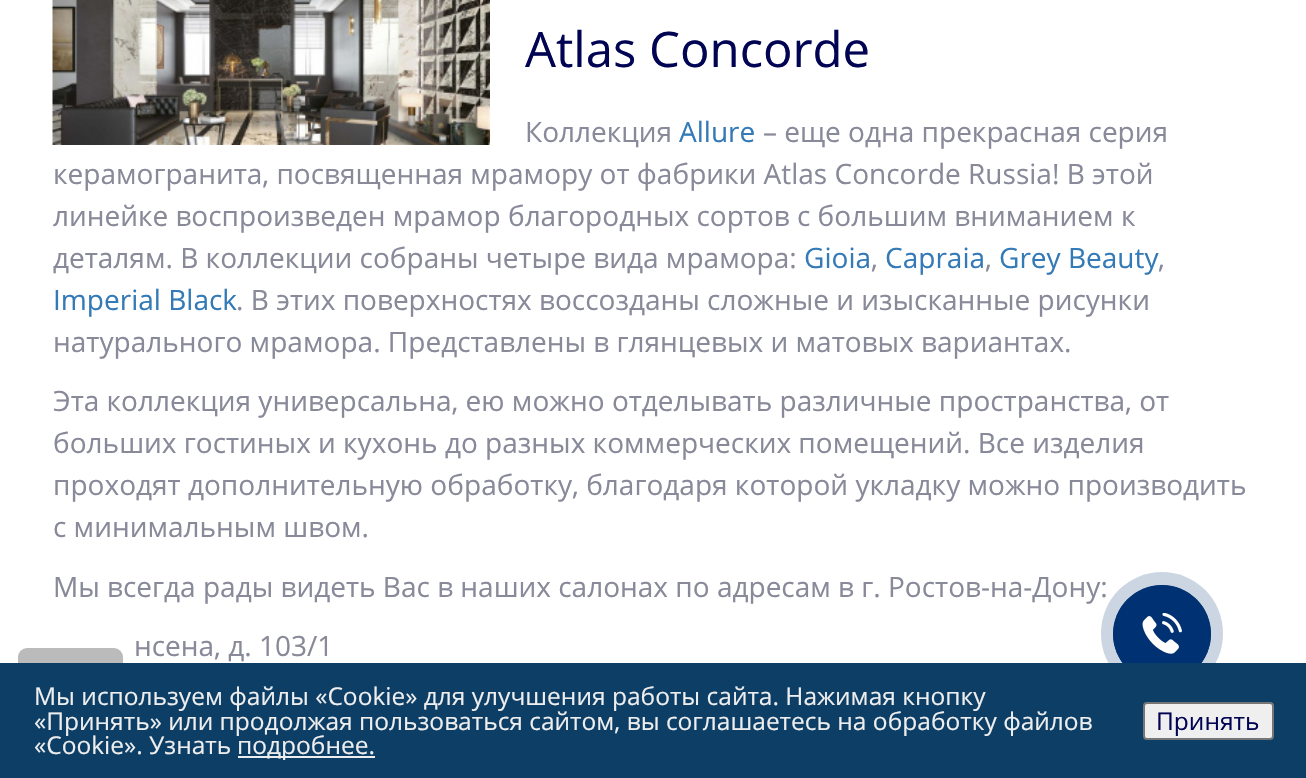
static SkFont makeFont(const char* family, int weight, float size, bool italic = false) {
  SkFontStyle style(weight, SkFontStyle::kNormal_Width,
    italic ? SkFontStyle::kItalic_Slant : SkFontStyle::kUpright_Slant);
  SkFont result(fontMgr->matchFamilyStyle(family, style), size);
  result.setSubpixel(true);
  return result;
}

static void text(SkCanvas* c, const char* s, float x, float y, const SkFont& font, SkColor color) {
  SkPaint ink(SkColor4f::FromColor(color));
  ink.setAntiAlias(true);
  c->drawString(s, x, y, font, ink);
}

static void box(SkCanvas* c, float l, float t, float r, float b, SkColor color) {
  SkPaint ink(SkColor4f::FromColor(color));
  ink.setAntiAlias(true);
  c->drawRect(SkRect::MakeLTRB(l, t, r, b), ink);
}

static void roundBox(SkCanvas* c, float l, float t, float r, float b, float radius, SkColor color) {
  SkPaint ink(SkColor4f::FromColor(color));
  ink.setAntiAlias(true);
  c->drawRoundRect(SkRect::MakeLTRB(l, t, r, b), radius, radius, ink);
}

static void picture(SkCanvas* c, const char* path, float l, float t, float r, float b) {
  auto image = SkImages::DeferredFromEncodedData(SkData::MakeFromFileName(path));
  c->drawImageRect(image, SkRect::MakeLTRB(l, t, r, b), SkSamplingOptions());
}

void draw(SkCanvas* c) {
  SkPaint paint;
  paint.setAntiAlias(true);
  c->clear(0xffffffff);
  picture(c, "img_01.png", 52, 0, 490, 145);
  SkFont face1 = makeFont("Open Sans", 400, 49);
  text(c, "Atlas Concorde", 525, 67, face1, 0xff010453);
  SkFont face2 = makeFont("Open Sans", 400, 28);
  text(c, "Коллекция", 525, 142, face2, 0xff888999);
  text(c, "Allure", 679, 142, face2, 0xff337ab7);
  text(c, "– еще одна прекрасная серия", 763, 142, face2, 0xff888999);
  text(c, "керамогранита, посвященная мрамору от фабрики Atlas Concorde Russia! В этой", 53, 184, face2, 0xff888999);
  text(c, "линейке воспроизведен мрамор благородных сортов с большим вниманием к", 53, 226, face2, 0xff888999);
  text(c, "деталям. В коллекции собраны четыре вида мрамора:", 53, 268, face2, 0xff888999);
  text(c, "Gioia", 804, 268, face2, 0xff337ab7);
  text(c, ",", 871, 268, face2, 0xff888999);
  text(c, "Capraia", 885, 268, face2, 0xff337ab7);
  text(c, ",", 985, 268, face2, 0xff888999);
  text(c, "Grey Beauty", 999, 268, face2, 0xff337ab7);
  text(c, ",", 1158, 268, face2, 0xff888999);
  text(c, "Imperial Black", 53, 310, face2, 0xff337ab7);
  text(c, ". В этих поверхностях воссозданы сложные и изысканные рисунки", 236, 310, face2, 0xff888999);
  text(c, "натурального мрамора. Представлены в глянцевых и матовых вариантах.", 53, 352, face2, 0xff888999);
  text(c, "Эта коллекция универсальна, ею можно отделывать различные пространства, от", 53, 411, face2, 0xff888999);
  text(c, "больших гостиных и кухонь до разных коммерческих помещений. Все изделия", 53, 453, face2, 0xff888999);
  text(c, "проходят дополнительную обработку, благодаря которой укладку можно производить", 53, 495, face2, 0xff888999);
  text(c, "с минимальным швом.", 53, 537, face2, 0xff888999);
  text(c, "Мы всегда рады видеть Вас в наших салонах по адресам в г. Ростов-на-Дону:", 53, 597, face2, 0xff888999);
  text(c, "нсена, д. 103/1", 134, 656, face2, 0xff888999);
  roundBox(c, 18, 648, 123, 761, 9, 0xccaaaaaa);
  roundBox(c, 1101, 572, 1223, 695, 61, 0xffccd6e3);
  paint.setStyle(SkPaint::kStroke_Style);
  paint.setStrokeWidth(1);
  paint.setColor(0xff003172);
  c->drawCircle(1162, 634, 48.5f, paint);
  paint.setStyle(SkPaint::kFill_Style);
  c->drawCircle(1162, 634, 49, paint);
  picture(c, "img_02.png", 1142, 613, 1182, 654);
  box(c, 0, 663, 1306, 778, 0xff0d3e66);
  SkFont face3 = makeFont("Open Sans", 400, 24.5f);
  text(c, "Мы используем файлы «Cookie» для улучшения работы сайта. Нажимая кнопку", 34, 705, face3, 0xffeeeeee);
  text(c, "«Принять» или продолжая пользоваться сайтом, вы соглашаетесь на обработку файлов", 34, 730, face3, 0xffeeeeee);
  text(c, "«Cookie». Узнать", 34, 754, face3, 0xffeeeeee);
  box(c, 238, 756, 375, 758, 0xffeeeeee);
  text(c, "подробнее.", 237, 754, face3, 0xffeeeeee);
  paint.setColor(0xffefefef);
  c->drawRoundRect(SkRect::MakeLTRB(1144, 703, 1273, 739), 3, 3, paint);
  paint.setStyle(SkPaint::kStroke_Style);
  paint.setStrokeWidth(2);
  paint.setColor(0xff767676);
  c->drawRoundRect(SkRect::MakeLTRB(1144, 703, 1273, 739), 3, 3, paint);
  text(c, "Принять", 1156, 730, face3, 0xff010453);
}
